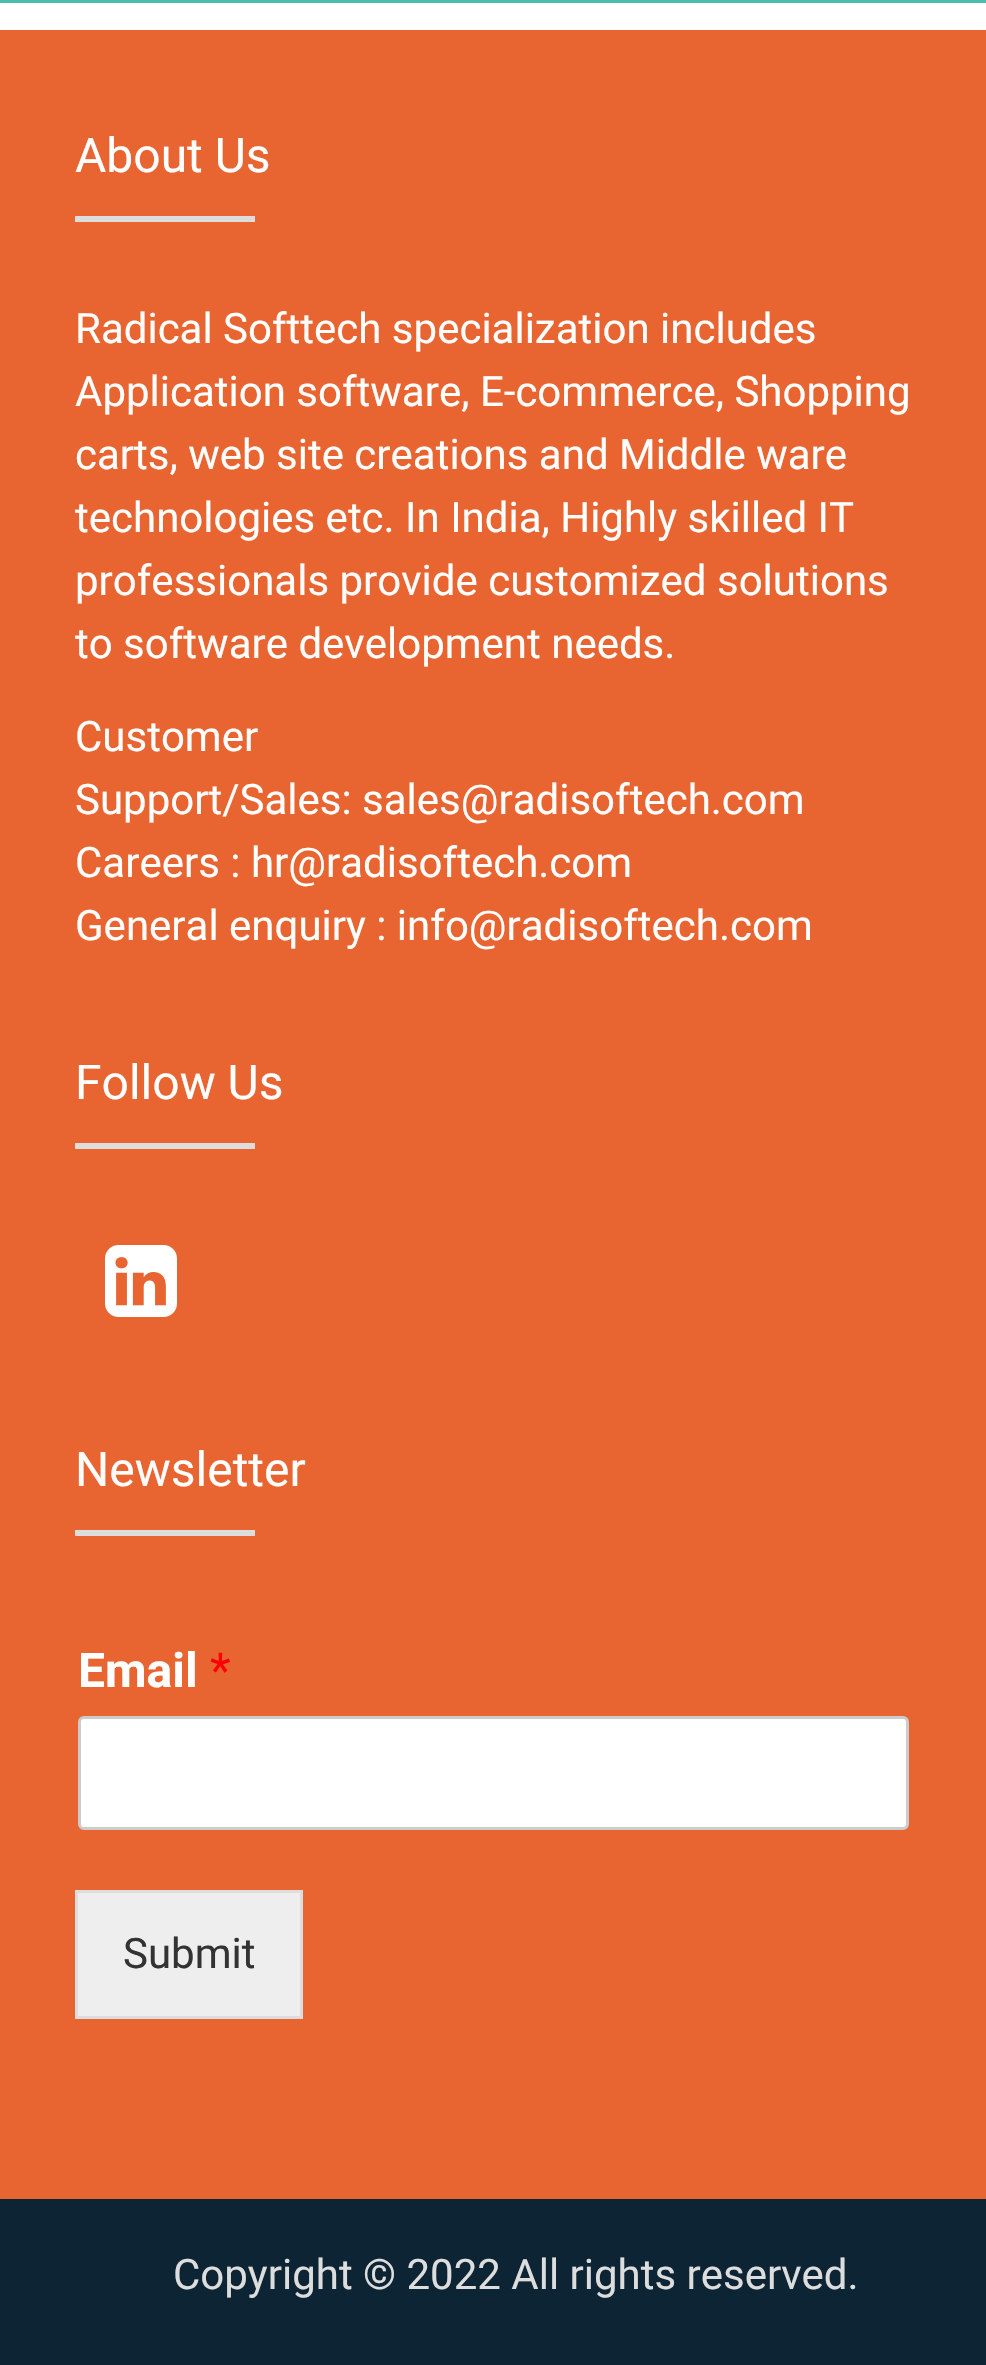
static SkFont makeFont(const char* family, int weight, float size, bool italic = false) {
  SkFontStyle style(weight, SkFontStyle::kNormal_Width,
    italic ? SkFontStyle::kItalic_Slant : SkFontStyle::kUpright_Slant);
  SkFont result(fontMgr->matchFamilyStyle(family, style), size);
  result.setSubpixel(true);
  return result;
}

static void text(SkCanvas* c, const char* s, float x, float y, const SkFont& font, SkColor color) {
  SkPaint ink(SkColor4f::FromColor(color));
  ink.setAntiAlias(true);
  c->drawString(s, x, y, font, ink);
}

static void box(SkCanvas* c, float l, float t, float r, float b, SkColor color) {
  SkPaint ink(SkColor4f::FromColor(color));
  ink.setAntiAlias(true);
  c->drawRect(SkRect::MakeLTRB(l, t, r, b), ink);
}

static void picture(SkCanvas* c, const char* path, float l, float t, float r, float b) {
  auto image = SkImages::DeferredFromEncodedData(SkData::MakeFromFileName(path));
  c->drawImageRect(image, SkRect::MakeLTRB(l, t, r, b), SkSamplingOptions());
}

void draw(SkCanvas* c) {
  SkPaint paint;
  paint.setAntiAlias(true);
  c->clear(0xffffffff);
  box(c, 0, 0, 986, 3, 0xff4abdac);
  box(c, 0, 30, 986, 2199, 0xffe86532);
  SkFont face1 = makeFont("Roboto", 400, 48);
  text(c, "About Us", 75, 172, face1, 0xffffffff);
  box(c, 75, 216, 255, 222, 0xffdddddd);
  SkFont face2 = makeFont("Roboto", 400, 42);
  text(c, "Radical Softtech specialization includes", 75, 343, face2, 0xffffffff);
  text(c, "Application software, E-commerce, Shopping", 75, 406, face2, 0xffffffff);
  text(c, "carts, web site creations and Middle ware", 75, 469, face2, 0xffffffff);
  text(c, "technologies etc. In India, Highly skilled IT", 75, 532, face2, 0xffffffff);
  text(c, "professionals provide customized solutions", 75, 595, face2, 0xffffffff);
  text(c, "to software development needs.", 75, 658, face2, 0xffffffff);
  text(c, "Customer", 75, 751, face2, 0xffffffff);
  text(c, "Support/Sales: sales@radisoftech.com", 75, 814, face2, 0xffffffff);
  text(c, "Careers : hr@radisoftech.com", 75, 877, face2, 0xffffffff);
  text(c, "General enquiry : info@radisoftech.com", 75, 940, face2, 0xffffffff);
  text(c, "Follow Us", 75, 1099, face1, 0xffffffff);
  box(c, 75, 1143, 255, 1149, 0xffdddddd);
  picture(c, "img_01.png", 105, 1245, 177, 1317);
  text(c, "Newsletter", 75, 1486, face1, 0xffffffff);
  box(c, 75, 1530, 255, 1536, 0xffdddddd);
  SkFont face3 = makeFont("Roboto", 700, 48);
  text(c, "Email", 78, 1687, face3, 0xffffffff);
  text(c, "*", 210, 1687, face1, 0xffff0000);
  paint.setColor(0xffffffff);
  c->drawRoundRect(SkRect::MakeLTRB(79.5f, 1717.5f, 907.5f, 1828.5f), 4.5f, 4.5f, paint);
  paint.setStyle(SkPaint::kStroke_Style);
  paint.setStrokeWidth(3);
  paint.setColor(0xffcccccc);
  c->drawRoundRect(SkRect::MakeLTRB(79.5f, 1717.5f, 907.5f, 1828.5f), 4.5f, 4.5f, paint);
  paint.setStyle(SkPaint::kFill_Style);
  paint.setColor(0xffeeeeee);
  c->drawRect(SkRect::MakeLTRB(76.5f, 1891.5f, 301.5f, 2017.5f), paint);
  paint.setStyle(SkPaint::kStroke_Style);
  paint.setColor(0xffdddddd);
  c->drawRect(SkRect::MakeLTRB(76.5f, 1891.5f, 301.5f, 2017.5f), paint);
  text(c, "Submit", 123, 1968, face2, 0xff333333);
  box(c, 0, 2199, 986, 2365, 0xff0c2433);
  text(c, "Copyright © 2022 All rights reserved.", 173, 2289, face2, 0xffdddddd);
}
